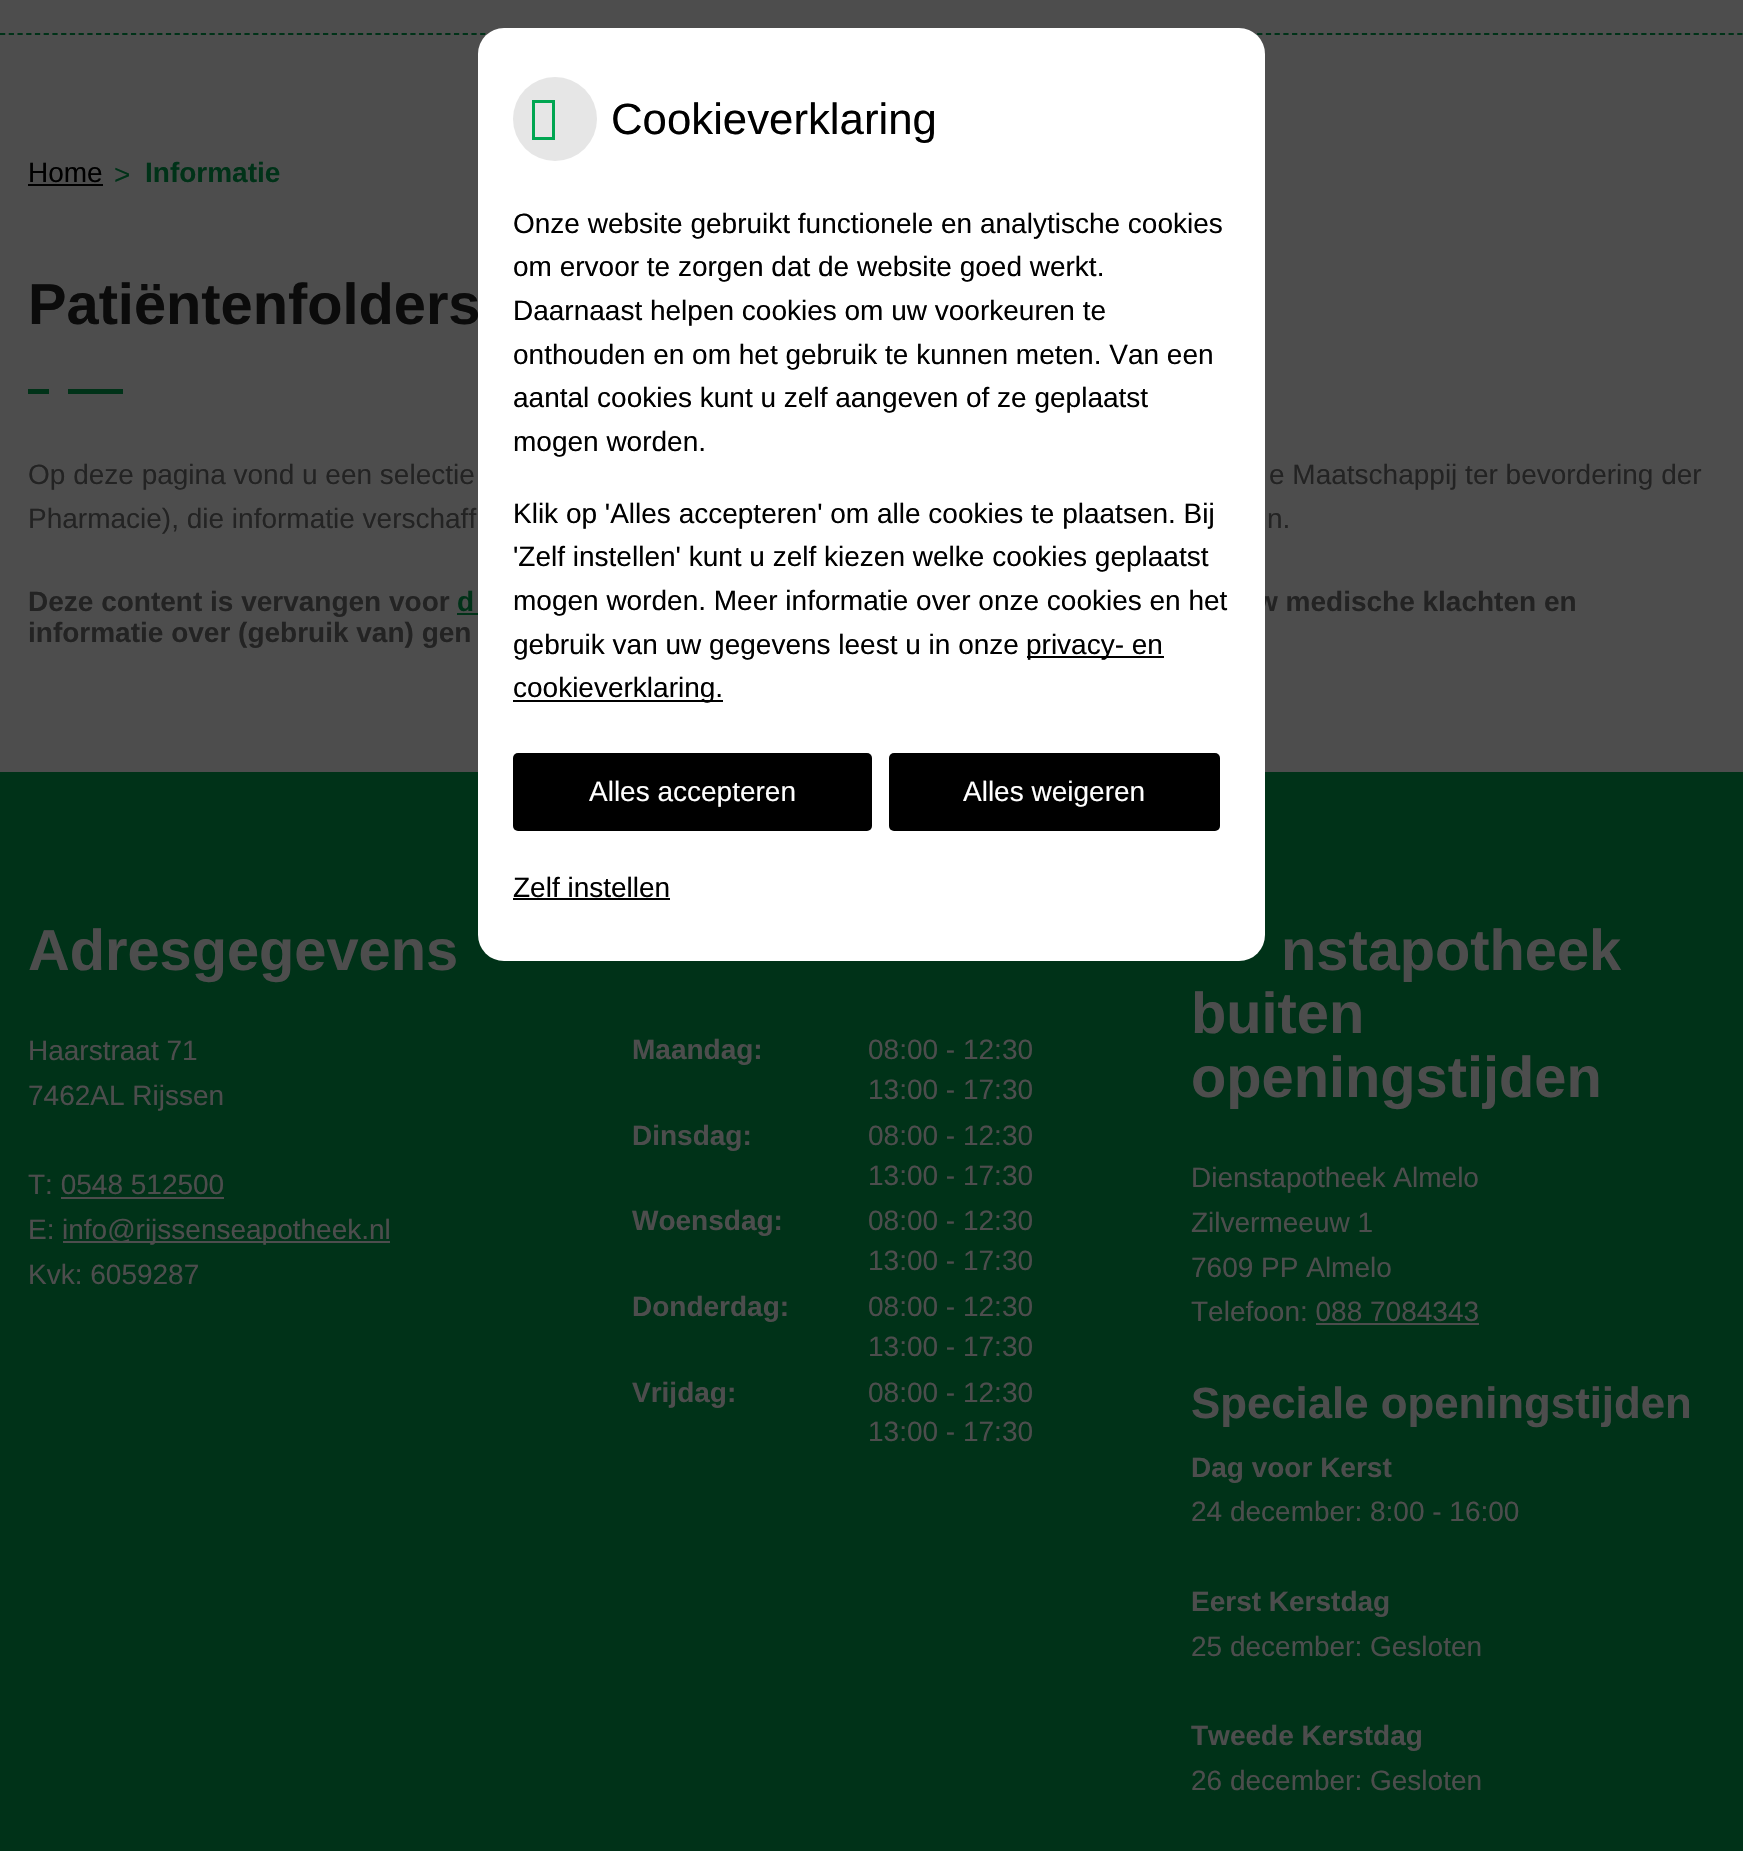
static SkFont makeFont(const char* family, int weight, float size, bool italic = false) {
  SkFontStyle style(weight, SkFontStyle::kNormal_Width,
    italic ? SkFontStyle::kItalic_Slant : SkFontStyle::kUpright_Slant);
  SkFont result(fontMgr->matchFamilyStyle(family, style), size);
  result.setSubpixel(true);
  return result;
}

static void text(SkCanvas* c, const char* s, float x, float y, const SkFont& font, SkColor color) {
  SkPaint ink(SkColor4f::FromColor(color));
  ink.setAntiAlias(true);
  c->drawString(s, x, y, font, ink);
}

static void box(SkCanvas* c, float l, float t, float r, float b, SkColor color) {
  SkPaint ink(SkColor4f::FromColor(color));
  ink.setAntiAlias(true);
  c->drawRect(SkRect::MakeLTRB(l, t, r, b), ink);
}

static void roundBox(SkCanvas* c, float l, float t, float r, float b, float radius, SkColor color) {
  SkPaint ink(SkColor4f::FromColor(color));
  ink.setAntiAlias(true);
  c->drawRoundRect(SkRect::MakeLTRB(l, t, r, b), radius, radius, ink);
}

void draw(SkCanvas* c) {
  SkPaint paint;
  paint.setAntiAlias(true);
  c->clear(0xff4d4d4d);
  paint.setStyle(SkPaint::kStroke_Style);
  paint.setStrokeWidth(1.8f);
  paint.setColor(0xff003218);
  paint.setPathEffect(SkDashPathEffect::Make({{5.25f, 3.48f}}, 0));
  c->drawPath(SkPathBuilder().moveTo(0, 34).lineTo(1743, 34).detach(), paint);
  paint.setPathEffect(nullptr);
  SkFont face1 = makeFont("Liberation Sans", 700, 57.75f);
  text(c, "Patiëntenfolders", 28, 324, face1, 0xff0b0b0b);
  SkFont face2 = makeFont("Liberation Sans", 700, 28);
  text(c, "w medische klachten en", 1256, 611, face2, 0xff232323);
  box(c, 0, 772, 1743, 1851, 0xff003218);
  roundBox(c, 478, 28, 1265, 961, 26, 0xffffffff);
  paint.setStyle(SkPaint::kFill_Style);
  paint.setColor(0xffe6e6e6);
  c->drawCircle(555, 119, 42, paint);
  paint.setColor(0xff00a651);
  c->drawPath(SkPathBuilder().moveTo(532, 140).lineTo(532, 100).lineTo(555, 100).lineTo(555, 140).close().moveTo(535, 137).lineTo(552, 137).lineTo(552, 103).lineTo(535, 103).close().detach(), paint);
  SkFont face3 = makeFont("Liberation Sans", 400, 43.75f);
  text(c, "Cookieverklaring", 611, 134, face3, 0xff000000);
  SkFont face4 = makeFont("Liberation Sans", 400, 28);
  text(c, "Onze website gebruikt functionele en analytische cookies", 513, 233, face4, 0xff000000);
  text(c, "om ervoor te zorgen dat de website goed werkt.", 513, 276, face4, 0xff000000);
  text(c, "Daarnaast helpen cookies om uw voorkeuren te", 513, 320, face4, 0xff000000);
  text(c, "onthouden en om het gebruik te kunnen meten. Van een", 513, 364, face4, 0xff000000);
  text(c, "aantal cookies kunt u zelf aangeven of ze geplaatst", 513, 407, face4, 0xff000000);
  text(c, "mogen worden.", 513, 451, face4, 0xff000000);
  text(c, "Klik op 'Alles accepteren' om alle cookies te plaatsen. Bij", 513, 523, face4, 0xff000000);
  text(c, "'Zelf instellen' kunt u zelf kiezen welke cookies geplaatst", 513, 566, face4, 0xff000000);
  text(c, "mogen worden. Meer informatie over onze cookies en het", 513, 610, face4, 0xff000000);
  text(c, "gebruik van uw gegevens leest u in onze", 513, 654, face4, 0xff000000);
  box(c, 1027, 656, 1164, 658, 0xff000000);
  text(c, "privacy- en", 1026, 654, face4, 0xff000000);
  box(c, 513, 700, 723, 702, 0xff000000);
  text(c, "cookieverklaring.", 513, 697, face4, 0xff000000);
  roundBox(c, 513, 753, 872, 831, 5, 0xff000000);
  text(c, "Alles accepteren", 589, 801, face4, 0xffffffff);
  roundBox(c, 889, 753, 1220, 831, 5, 0xff000000);
  text(c, "Alles weigeren", 963, 801, face4, 0xffffffff);
  text(c, "Zelf instellen", 513, 897, face4, 0xff000000);
  box(c, 513, 898, 670, 900, 0xff000000);
  text(c, "Home", 28, 182, face4, 0xff000000);
  box(c, 28, 184, 103, 186, 0xff000000);
  text(c, ">", 114, 184, face4, 0xff003218);
  text(c, "Informatie", 145, 182, face2, 0xff003218);
  box(c, 28, 389, 49, 394, 0xff003218);
  box(c, 68, 389, 123, 394, 0xff003218);
  text(c, "Op deze pagina vond u een selectie", 28, 484, face4, 0xff232323);
  text(c, "e Maatschappij ter bevordering der", 1269, 484, face4, 0xff232323);
  text(c, "Pharmacie), die informatie verschaff", 28, 528, face4, 0xff232323);
  text(c, "n.", 1267, 528, face4, 0xff232323);
  text(c, "Deze content is vervangen voor", 28, 611, face2, 0xff232323);
  text(c, "d", 457, 611, face2, 0xff003218);
  box(c, 457, 613, 478, 615, 0xff003218);
  text(c, "informatie over (gebruik van) gen", 28, 642, face2, 0xff232323);
  text(c, "Adresgegevens", 28, 970, face1, 0xff4d4d4d);
  text(c, "Haarstraat 71", 28, 1060, face4, 0xff4d4d4d);
  text(c, "7462AL Rijssen", 28, 1105, face4, 0xff4d4d4d);
  text(c, "T: 0548 512500", 28, 1194, face4, 0xff4d4d4d);
  box(c, 61, 1197, 224, 1199, 0xff4d4d4d);
  text(c, "E:", 28, 1239, face4, 0xff4d4d4d);
  box(c, 63, 1241, 390, 1243, 0xff4d4d4d);
  text(c, "info@rijssenseapotheek.nl", 62, 1239, face4, 0xff4d4d4d);
  text(c, "Kvk: 6059287", 28, 1284, face4, 0xff4d4d4d);
  text(c, "Maandag:", 632, 1059, face2, 0xff4d4d4d);
  text(c, "08:00 - 12:30", 868, 1059, face4, 0xff4d4d4d);
  text(c, "13:00 - 17:30", 868, 1099, face4, 0xff4d4d4d);
  text(c, "Dinsdag:", 632, 1145, face2, 0xff4d4d4d);
  text(c, "08:00 - 12:30", 868, 1145, face4, 0xff4d4d4d);
  text(c, "13:00 - 17:30", 868, 1185, face4, 0xff4d4d4d);
  text(c, "Woensdag:", 632, 1230, face2, 0xff4d4d4d);
  text(c, "08:00 - 12:30", 868, 1230, face4, 0xff4d4d4d);
  text(c, "13:00 - 17:30", 868, 1270, face4, 0xff4d4d4d);
  text(c, "Donderdag:", 632, 1316, face2, 0xff4d4d4d);
  text(c, "08:00 - 12:30", 868, 1316, face4, 0xff4d4d4d);
  text(c, "13:00 - 17:30", 868, 1356, face4, 0xff4d4d4d);
  text(c, "Vrijdag:", 632, 1402, face2, 0xff4d4d4d);
  text(c, "08:00 - 12:30", 868, 1402, face4, 0xff4d4d4d);
  text(c, "13:00 - 17:30", 868, 1441, face4, 0xff4d4d4d);
  text(c, "nstapotheek", 1281, 970, face1, 0xff4d4d4d);
  text(c, "buiten", 1191, 1033, face1, 0xff4d4d4d);
  text(c, "openingstijden", 1191, 1097, face1, 0xff4d4d4d);
  text(c, "Dienstapotheek Almelo", 1191, 1187, face4, 0xff4d4d4d);
  text(c, "Zilvermeeuw 1", 1191, 1232, face4, 0xff4d4d4d);
  text(c, "7609 PP Almelo", 1191, 1277, face4, 0xff4d4d4d);
  text(c, "Telefoon: 088 7084343", 1191, 1321, face4, 0xff4d4d4d);
  box(c, 1316, 1323, 1479, 1325, 0xff4d4d4d);
  SkFont face5 = makeFont("Liberation Sans", 700, 43.75f);
  text(c, "Speciale openingstijden", 1191, 1418, face5, 0xff4d4d4d);
  text(c, "Dag voor Kerst", 1191, 1477, face2, 0xff4d4d4d);
  text(c, "24 december: 8:00 - 16:00", 1191, 1521, face4, 0xff4d4d4d);
  text(c, "Eerst Kerstdag", 1191, 1611, face2, 0xff4d4d4d);
  text(c, "25 december: Gesloten", 1191, 1656, face4, 0xff4d4d4d);
  text(c, "Tweede Kerstdag", 1191, 1745, face2, 0xff4d4d4d);
  text(c, "26 december: Gesloten", 1191, 1790, face4, 0xff4d4d4d);
}
